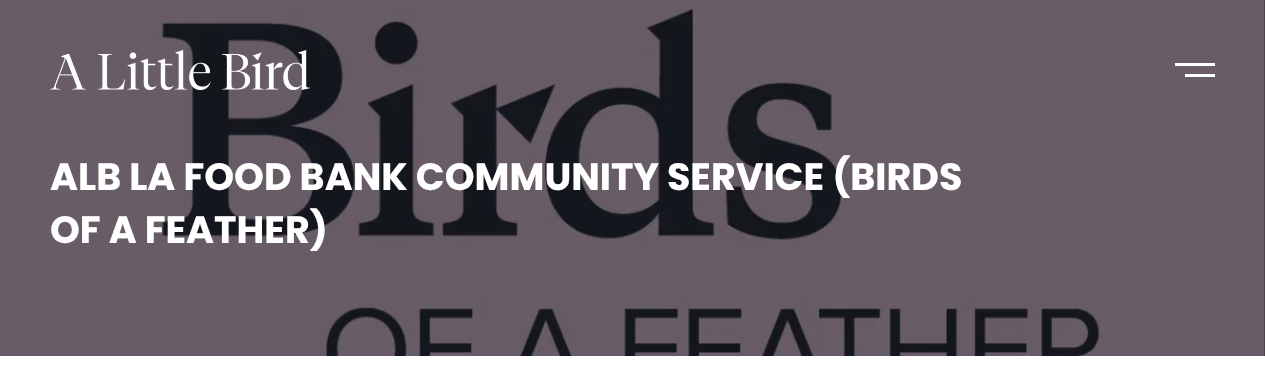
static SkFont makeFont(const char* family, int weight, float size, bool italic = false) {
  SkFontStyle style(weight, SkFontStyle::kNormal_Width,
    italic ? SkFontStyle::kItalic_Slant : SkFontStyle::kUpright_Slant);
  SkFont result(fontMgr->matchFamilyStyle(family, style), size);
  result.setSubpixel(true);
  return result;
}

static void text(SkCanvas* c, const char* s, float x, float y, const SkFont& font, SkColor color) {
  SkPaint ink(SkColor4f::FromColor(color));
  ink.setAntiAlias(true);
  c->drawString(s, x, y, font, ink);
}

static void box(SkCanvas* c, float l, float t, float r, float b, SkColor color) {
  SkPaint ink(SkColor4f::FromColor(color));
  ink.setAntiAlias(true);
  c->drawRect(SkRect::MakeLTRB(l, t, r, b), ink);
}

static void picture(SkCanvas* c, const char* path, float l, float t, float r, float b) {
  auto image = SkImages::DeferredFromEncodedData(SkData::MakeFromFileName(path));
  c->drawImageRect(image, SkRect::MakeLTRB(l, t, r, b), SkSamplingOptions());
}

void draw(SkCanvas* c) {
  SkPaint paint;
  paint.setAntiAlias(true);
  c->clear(0xffffffff);
  box(c, 0, 0, 1265, 356, 0xff000000);
  picture(c, "img_02.png", 0, 0, 1265, 356);
  picture(c, "img_01.png", 50, 50, 310, 90);
  box(c, 1175, 63, 1215, 66, 0xffffffff);
  box(c, 1185, 74, 1215, 77, 0xffffffff);
  SkFont face1 = makeFont("Poppins", 700, 38);
  text(c, "ALB LA FOOD BANK COMMUNITY SERVICE (BIRDS", 50, 190, face1, 0xffffffff);
  text(c, "OF A FEATHER)", 50, 243, face1, 0xffffffff);
}
